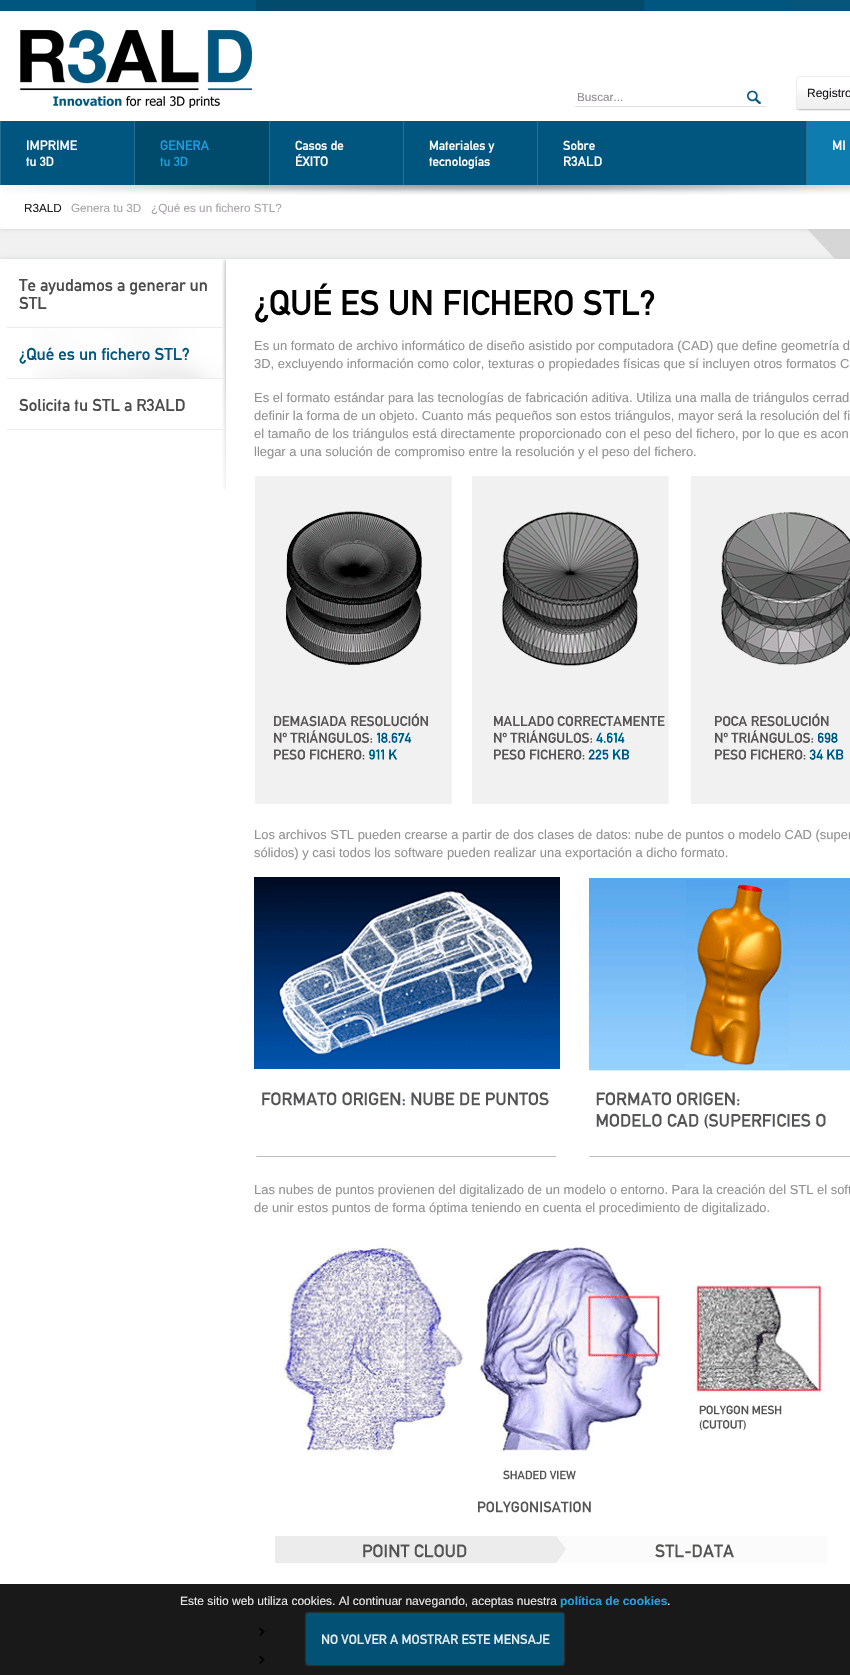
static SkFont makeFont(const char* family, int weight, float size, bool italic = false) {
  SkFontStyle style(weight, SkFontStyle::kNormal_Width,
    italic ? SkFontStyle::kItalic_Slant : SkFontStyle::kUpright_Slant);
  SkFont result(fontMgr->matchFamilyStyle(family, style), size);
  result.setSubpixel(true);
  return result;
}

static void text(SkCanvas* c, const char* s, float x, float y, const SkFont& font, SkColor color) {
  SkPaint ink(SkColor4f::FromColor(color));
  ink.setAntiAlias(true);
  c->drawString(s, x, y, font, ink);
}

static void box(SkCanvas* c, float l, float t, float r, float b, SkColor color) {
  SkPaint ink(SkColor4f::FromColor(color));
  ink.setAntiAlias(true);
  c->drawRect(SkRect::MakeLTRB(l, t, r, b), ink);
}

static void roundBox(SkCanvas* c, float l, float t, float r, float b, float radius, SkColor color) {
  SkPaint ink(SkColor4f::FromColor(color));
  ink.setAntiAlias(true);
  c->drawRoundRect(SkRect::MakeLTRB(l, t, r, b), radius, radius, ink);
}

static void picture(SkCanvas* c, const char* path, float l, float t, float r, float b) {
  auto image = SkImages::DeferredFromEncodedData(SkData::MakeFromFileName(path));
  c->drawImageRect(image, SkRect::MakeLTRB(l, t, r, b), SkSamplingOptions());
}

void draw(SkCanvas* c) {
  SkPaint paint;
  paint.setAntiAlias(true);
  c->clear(0xfff1f1f1);
  picture(c, "img_01.png", 0, 0, 850, 121);
  picture(c, "img_02.png", 797, 229, 850, 259);
  picture(c, "img_03.png", 20, 30, 252, 108);
  box(c, 575, 106, 766, 107, 0xffe1e0e1);
  SkFont face1 = makeFont("Liberation Sans", 400, 11.7f);
  text(c, "Buscar...", 577, 101, face1, 0xff8e8b8e);
  picture(c, "img_04.png", 747, 90, 761, 104);
  picture(c, "img_05.png", 796, 89, 850, 110);
  paint.setStyle(SkPaint::kStroke_Style);
  paint.setStrokeWidth(1);
  paint.setColor(0xffedeced);
  c->drawRoundRect(SkRect::MakeLTRB(796.5f, 76.5f, 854.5f, 110.5f), 3.5f, 3.5f, paint);
  SkFont face2 = makeFont("Liberation Sans", 400, 12);
  text(c, "Registro", 807, 97, face2, 0xff1a171b);
  paint.setStyle(SkPaint::kFill_Style);
  paint.setColor(0xffced0d0);
  paint.setMaskFilter(SkMaskFilter::MakeBlur(kNormal_SkBlurStyle, 2));
  c->drawRoundRect(SkRect::MakeLTRB(0, 185, 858, 229), 2, 2, paint);
  paint.setMaskFilter(nullptr);
  box(c, 1, 121, 806, 185, 0xff00567e);
  box(c, 0, 121, 1, 185, 0xff266f91);
  SkFont face3 = makeFont("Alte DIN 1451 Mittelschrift", 400, 13.5f);
  text(c, "IMPRIME", 26, 150, face3, 0xffffffff);
  SkFont face4 = makeFont("Alte DIN 1451 Mittelschrift", 400, 12.95f);
  text(c, "tu 3D", 26, 166, face4, 0xffffffff);
  box(c, 134, 121, 135, 185, 0xff266f91);
  box(c, 135, 121, 269, 185, 0xff004a6c);
  text(c, "GENERA", 160, 150, face3, 0xff1b9fde);
  text(c, "tu 3D", 160, 166, face4, 0xff1b9fde);
  box(c, 269, 121, 270, 185, 0xff266f91);
  text(c, "Casos de", 295, 150, face4, 0xffffffff);
  text(c, "ÉXITO", 295, 166, face3, 0xffffffff);
  box(c, 403, 121, 404, 185, 0xff266f91);
  text(c, "Materiales y", 429, 150, face4, 0xffffffff);
  text(c, "tecnologías", 429, 166, face4, 0xffffffff);
  box(c, 537, 121, 538, 185, 0xff266f91);
  text(c, "Sobre", 563, 150, face4, 0xffffffff);
  text(c, "R3ALD", 563, 166, face3, 0xffffffff);
  box(c, 807, 121, 850, 185, 0xff0f7caf);
  box(c, 806, 121, 807, 185, 0xff266f91);
  text(c, "MI", 832, 150, face3, 0xffffffff);
  paint.setColor(0xffffffff);
  c->drawPath(SkPathBuilder().moveTo(0, 185).lineTo(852, 185).lineTo(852, 227).cubicTo(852, 228, 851, 229, 850, 229).lineTo(2, 229).cubicTo(1, 229, 0, 228, 0, 227).close().detach(), paint);
  picture(c, "img_06.png", 2, 185, 850, 195);
  text(c, "R3ALD", 24, 212, face1, 0xff211f20);
  text(c, "Genera tu 3D", 71, 212, face1, 0xffa8a5a8);
  text(c, "¿Qué es un fichero STL?", 151, 212, face1, 0xffa8a5a8);
  paint.setColor(0xffced0d0);
  paint.setMaskFilter(SkMaskFilter::MakeBlur(kNormal_SkBlurStyle, 2));
  c->drawRect(SkRect::MakeLTRB(0, 259, 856, 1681), paint);
  paint.setMaskFilter(nullptr);
  box(c, 0, 259, 850, 1584, 0xffffffff);
  box(c, 0, 1584, 850, 1675, 0xff191919);
  picture(c, "img_07.png", 222, 259, 226, 489);
  box(c, 7, 327, 223, 328, 0xffebebeb);
  SkFont face5 = makeFont("Alte DIN 1451 Mittelschrift", 400, 17);
  text(c, "Te ayudamos a generar un", 19, 291, face5, 0xff4b4b4b);
  text(c, "STL", 19, 309, face5, 0xff4b4b4b);
  picture(c, "img_08.png", 32, 328, 222, 378);
  box(c, 7, 378, 223, 379, 0xffebebeb);
  text(c, "¿Qué es un fichero STL?", 19, 360, face5, 0xff00567e);
  box(c, 7, 429, 223, 430, 0xffebebeb);
  text(c, "Solicita tu STL a R3ALD", 19, 411, face5, 0xff4b4b4b);
  SkFont face6 = makeFont("Alte DIN 1451 Mittelschrift", 400, 35);
  text(c, "¿QUÉ ES UN FICHERO STL?", 254, 315, face6, 0xff000000);
  SkFont face7 = makeFont("Liberation Sans", 400, 12.95f);
  text(c, "Es un formato de archivo informático de diseño asistido por computadora (CAD) que define geometría d", 254, 350, face7, 0xff919191);
  text(c, "3D, excluyendo información como color, texturas o propiedades físicas que sí incluyen otros formatos C", 254, 368, face7, 0xff919191);
  text(c, "Es el formato estándar para las tecnologías de fabricación aditiva. Utiliza una malla de triángulos cerrad", 254, 402, face7, 0xff919191);
  text(c, "definir la forma de un objeto. Cuanto más pequeños son estos triángulos, mayor será la resolución del fi", 254, 420, face7, 0xff919191);
  text(c, "el tamaño de los triángulos está directamente proporcionado con el peso del fichero, por lo que es acon", 254, 438, face7, 0xff919191);
  text(c, "llegar a una solución de compromiso entre la resolución y el peso del fichero.", 254, 456, face7, 0xff919191);
  picture(c, "img_09.png", 255, 476, 850, 804);
  text(c, "Los archivos STL pueden crearse a partir de dos clases de datos: nube de puntos o modelo CAD (super", 254, 839, face7, 0xff919191);
  text(c, "sólidos) y casi todos los software pueden realizar una exportación a dicho formato.", 254, 857, face7, 0xff919191);
  picture(c, "img_10.png", 254, 877, 850, 1157);
  text(c, "Las nubes de puntos provienen del digitalizado de un modelo o entorno. Para la creación del STL el soft", 254, 1194, face7, 0xff919191);
  text(c, "de unir estos puntos de forma óptima teniendo en cuenta el procedimiento de digitalizado.", 254, 1212, face7, 0xff919191);
  picture(c, "img_11.png", 275, 1241, 827, 1563);
  picture(c, "img_12.png", 259, 1627, 265, 1636);
  picture(c, "img_12.png", 259, 1655, 265, 1664);
  text(c, "Este sitio web utiliza cookies. Al continuar navegando, aceptas nuestra", 180, 1605, face2, 0xffe8e8e8);
  SkFont face8 = makeFont("Liberation Sans", 700, 12);
  text(c, "política de cookies", 560, 1605, face8, 0xff27a1db);
  text(c, ".", 667, 1605, face2, 0xffffffff);
  c->save();
  c->clipPath(SkPathBuilder(SkPathFillType::kEvenOdd).moveTo(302, 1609).lineTo(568, 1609).lineTo(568, 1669).lineTo(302, 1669).close().moveTo(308, 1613).lineTo(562, 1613).cubicTo(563, 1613, 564, 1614, 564, 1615).lineTo(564, 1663).cubicTo(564, 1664, 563, 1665, 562, 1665).lineTo(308, 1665).cubicTo(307, 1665, 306, 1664, 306, 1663).lineTo(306, 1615).cubicTo(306, 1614, 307, 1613, 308, 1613).close().detach(), true);
  paint.setColor(0xe66c6c6c);
  paint.setMaskFilter(SkMaskFilter::MakeBlur(kNormal_SkBlurStyle, 1));
  c->drawRoundRect(SkRect::MakeLTRB(306, 1613, 564, 1665), 2, 2, paint);
  paint.setMaskFilter(nullptr);
  c->restore();
  roundBox(c, 306, 1613, 564, 1665, 2, 0xe600567e);
  SkFont face9 = makeFont("Alte DIN 1451 Mittelschrift", 400, 13.25f);
  text(c, "NO VOLVER A MOSTRAR ESTE MENSAJE", 321, 1644, face9, 0xffe6edf1);
}
